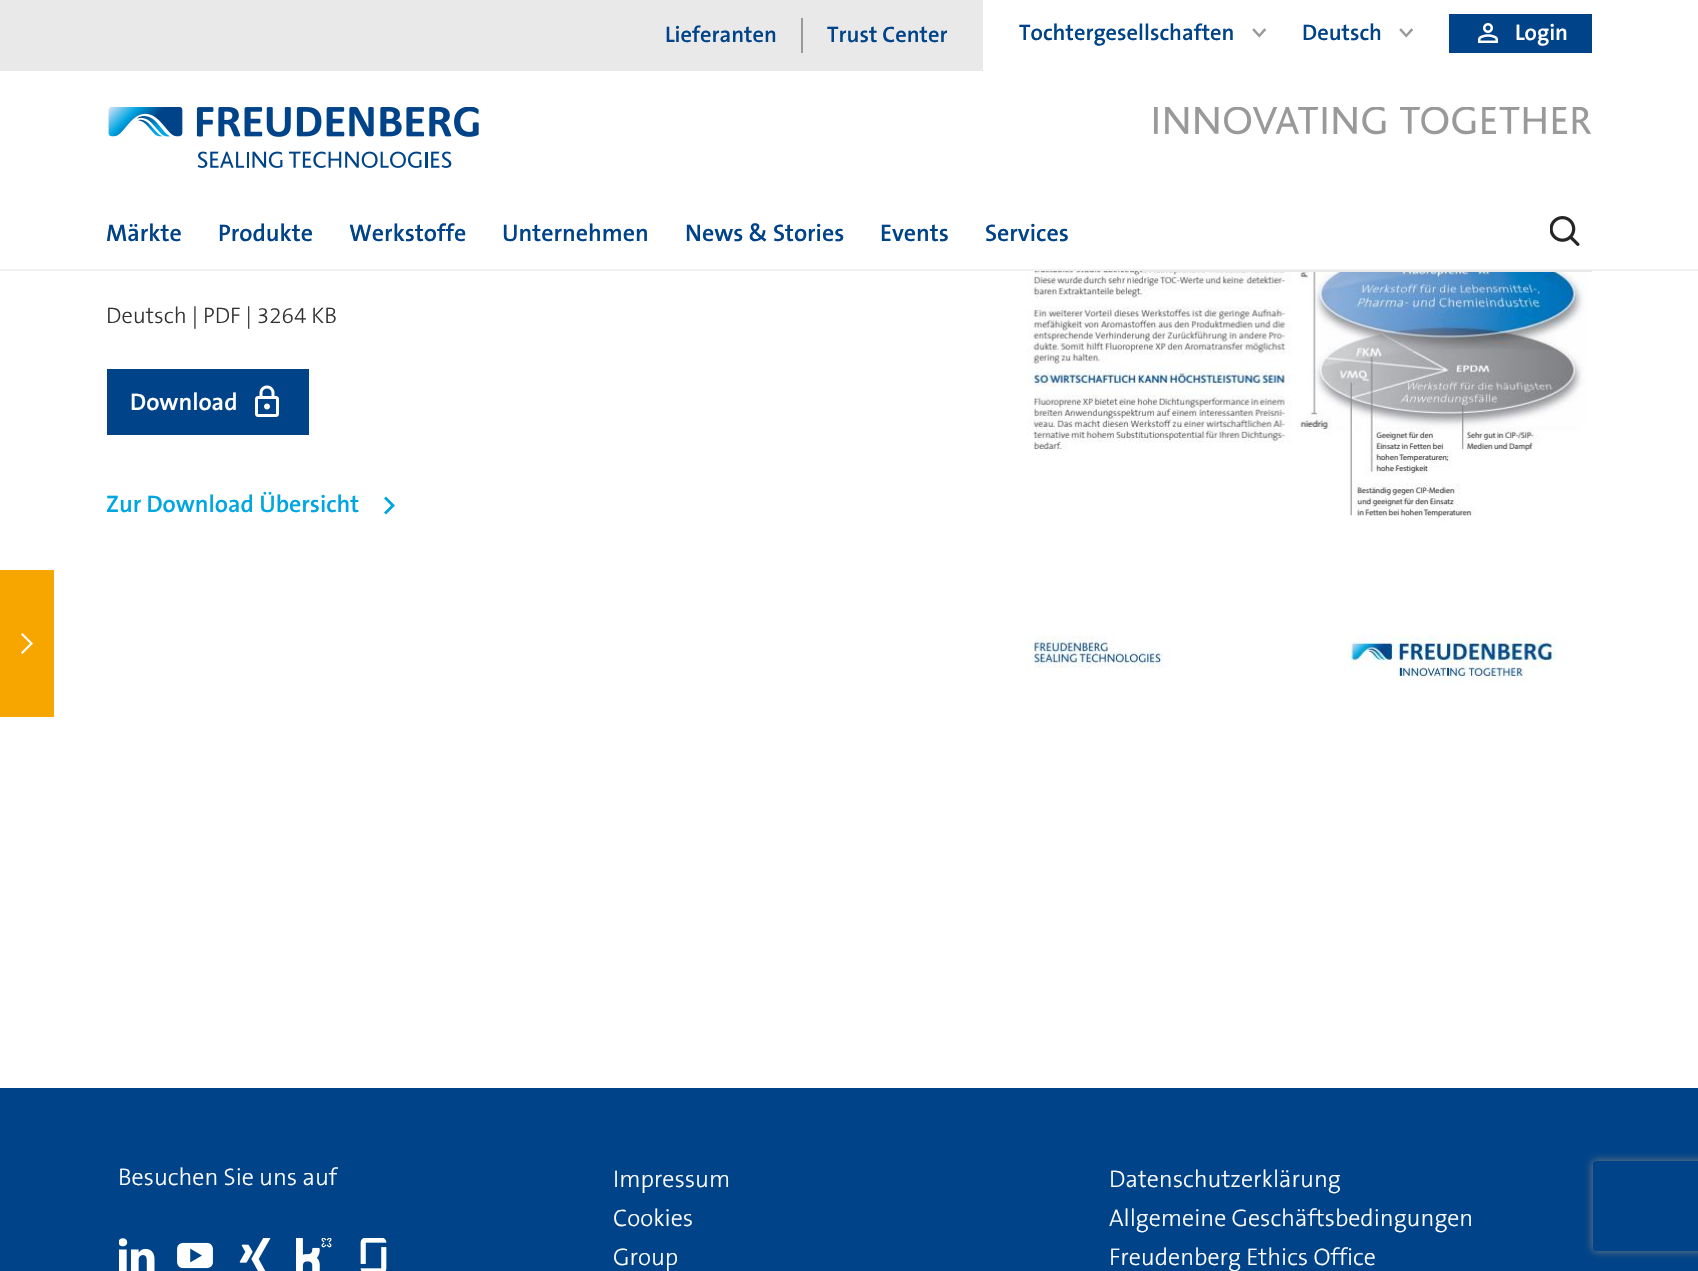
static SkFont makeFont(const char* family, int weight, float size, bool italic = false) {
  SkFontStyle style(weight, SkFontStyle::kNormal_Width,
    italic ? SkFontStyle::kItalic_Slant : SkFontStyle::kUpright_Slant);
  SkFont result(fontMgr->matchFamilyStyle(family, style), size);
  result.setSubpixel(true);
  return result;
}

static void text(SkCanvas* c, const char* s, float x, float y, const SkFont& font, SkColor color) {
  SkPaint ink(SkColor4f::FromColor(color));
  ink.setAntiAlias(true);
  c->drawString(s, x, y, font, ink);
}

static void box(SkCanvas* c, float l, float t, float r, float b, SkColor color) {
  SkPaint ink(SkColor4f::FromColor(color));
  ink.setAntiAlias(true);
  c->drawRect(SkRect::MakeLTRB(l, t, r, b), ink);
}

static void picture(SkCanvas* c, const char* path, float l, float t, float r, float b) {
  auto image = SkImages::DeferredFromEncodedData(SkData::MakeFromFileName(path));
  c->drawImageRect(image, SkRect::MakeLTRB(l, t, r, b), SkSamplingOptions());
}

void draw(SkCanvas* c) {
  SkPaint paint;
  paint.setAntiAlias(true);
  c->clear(0xffffffff);
  box(c, 0, 570, 54, 717, 0xfff7a600);
  paint.setColor(0xffffffff);
  c->drawPath(SkPathBuilder().moveTo(30, 643.5f).lineTo(21, 652.5f).lineTo(22.5f, 654).lineTo(33, 643.5f).lineTo(22.5f, 633).lineTo(21, 634.5f).close().detach(), paint);
  box(c, 0, 0, 983, 71, 0xffe9e9e9);
  SkFont face1 = makeFont("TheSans", 600, 22.5f);
  text(c, "Lieferanten", 665, 42, face1, 0xff004388);
  box(c, 801, 18, 803, 53, 0xff999999);
  text(c, "Trust Center", 827, 42, face1, 0xff004388);
  text(c, "Tochtergesellschaften", 1019, 40, face1, 0xff004388);
  SkFont face2 = makeFont("TheSans", 600, 24);
  c->save();
  c->rotate(90, 1252, 26);
  text(c, ">", 1252, 26, face2, 0xff999999);
  c->restore();
  text(c, "Deutsch", 1302, 40, face1, 0xff004388);
  c->save();
  c->rotate(90, 1399, 26);
  text(c, ">", 1399, 26, face2, 0xff999999);
  c->restore();
  box(c, 1449, 14, 1592, 53, 0xff004388);
  picture(c, "img_01.png", 1478, 23, 1498, 43);
  text(c, "Login", 1515, 40, face1, 0xffffffff);
  box(c, 0, 269, 1698, 271, 0xfff2f1f1);
  picture(c, "img_02.png", 108, 107, 479, 168);
  picture(c, "img_03.png", 1154, 107, 1592, 135);
  text(c, "Märkte", 106, 241, face2, 0xff004388);
  text(c, "Produkte", 218, 241, face2, 0xff004388);
  text(c, "Werkstoffe", 349, 241, face2, 0xff004388);
  text(c, "Unternehmen", 502, 241, face2, 0xff004388);
  text(c, "News & Stories", 685, 241, face2, 0xff004388);
  text(c, "Events", 880, 241, face2, 0xff004388);
  text(c, "Services", 985, 241, face2, 0xff004388);
  picture(c, "img_04.png", 1550, 216, 1580, 246);
  picture(c, "img_06.png", 1026, 271, 1588, 684);
  box(c, 1142, 270, 1592, 272, 0xffe9e9e9);
  SkFont face3 = makeFont("TheSans", 300, 22.5f);
  text(c, "Deutsch | PDF | 3264 KB", 106, 323, face3, 0xff333333);
  box(c, 107, 369, 309, 435, 0xff004388);
  text(c, "Download", 130, 410, face2, 0xffffffff);
  picture(c, "img_05.png", 255, 385, 279, 417);
  text(c, "Zur Download Übersicht", 106, 512, face2, 0xff00a6e2);
  paint.setColor(0xff00a6e2);
  c->drawPath(SkPathBuilder().moveTo(391, 505.5f).lineTo(384, 498.5f).lineTo(386, 496.5f).lineTo(395, 505.5f).lineTo(386, 514.5f).lineTo(384, 512.5f).close().detach(), paint);
  box(c, 0, 1088, 1698, 1271, 0xff004388);
  SkFont face4 = makeFont("TheSans", 300, 24);
  text(c, "Besuchen Sie uns auf", 118, 1185, face4, 0xffffffff);
  picture(c, "img_07.png", 119, 1238, 155, 1271);
  picture(c, "img_08.png", 177, 1242, 213, 1269);
  picture(c, "img_09.png", 239, 1238, 271, 1271);
  picture(c, "img_10.png", 296, 1238, 332, 1271);
  picture(c, "img_11.png", 360, 1238, 387, 1271);
  text(c, "Impressum", 613, 1187, face4, 0xffffffff);
  text(c, "Cookies", 613, 1226, face4, 0xffffffff);
  text(c, "Group", 613, 1265, face4, 0xffffffff);
  text(c, "Datenschutzerklärung", 1109, 1187, face4, 0xffffffff);
  text(c, "Allgemeine Geschäftsbedingungen", 1109, 1226, face4, 0xffffffff);
  text(c, "Freudenberg Ethics Office", 1109, 1265, face4, 0xffffffff);
  c->save();
  c->clipPath(SkPathBuilder(SkPathFillType::kEvenOdd).moveTo(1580, 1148).lineTo(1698, 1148).lineTo(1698, 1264).lineTo(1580, 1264).close().moveTo(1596, 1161).lineTo(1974, 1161).cubicTo(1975.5f, 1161, 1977, 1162.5f, 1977, 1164).lineTo(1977, 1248).cubicTo(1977, 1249.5f, 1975.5f, 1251, 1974, 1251).lineTo(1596, 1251).cubicTo(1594.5f, 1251, 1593, 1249.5f, 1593, 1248).lineTo(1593, 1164).cubicTo(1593, 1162.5f, 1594.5f, 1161, 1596, 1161).close().detach(), true);
  paint.setColor(0xff808080);
  paint.setMaskFilter(SkMaskFilter::MakeBlur(kNormal_SkBlurStyle, 4));
  c->drawRoundRect(SkRect::MakeLTRB(1593, 1161, 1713, 1251), 3, 3, paint);
  paint.setMaskFilter(nullptr);
  c->restore();
}
